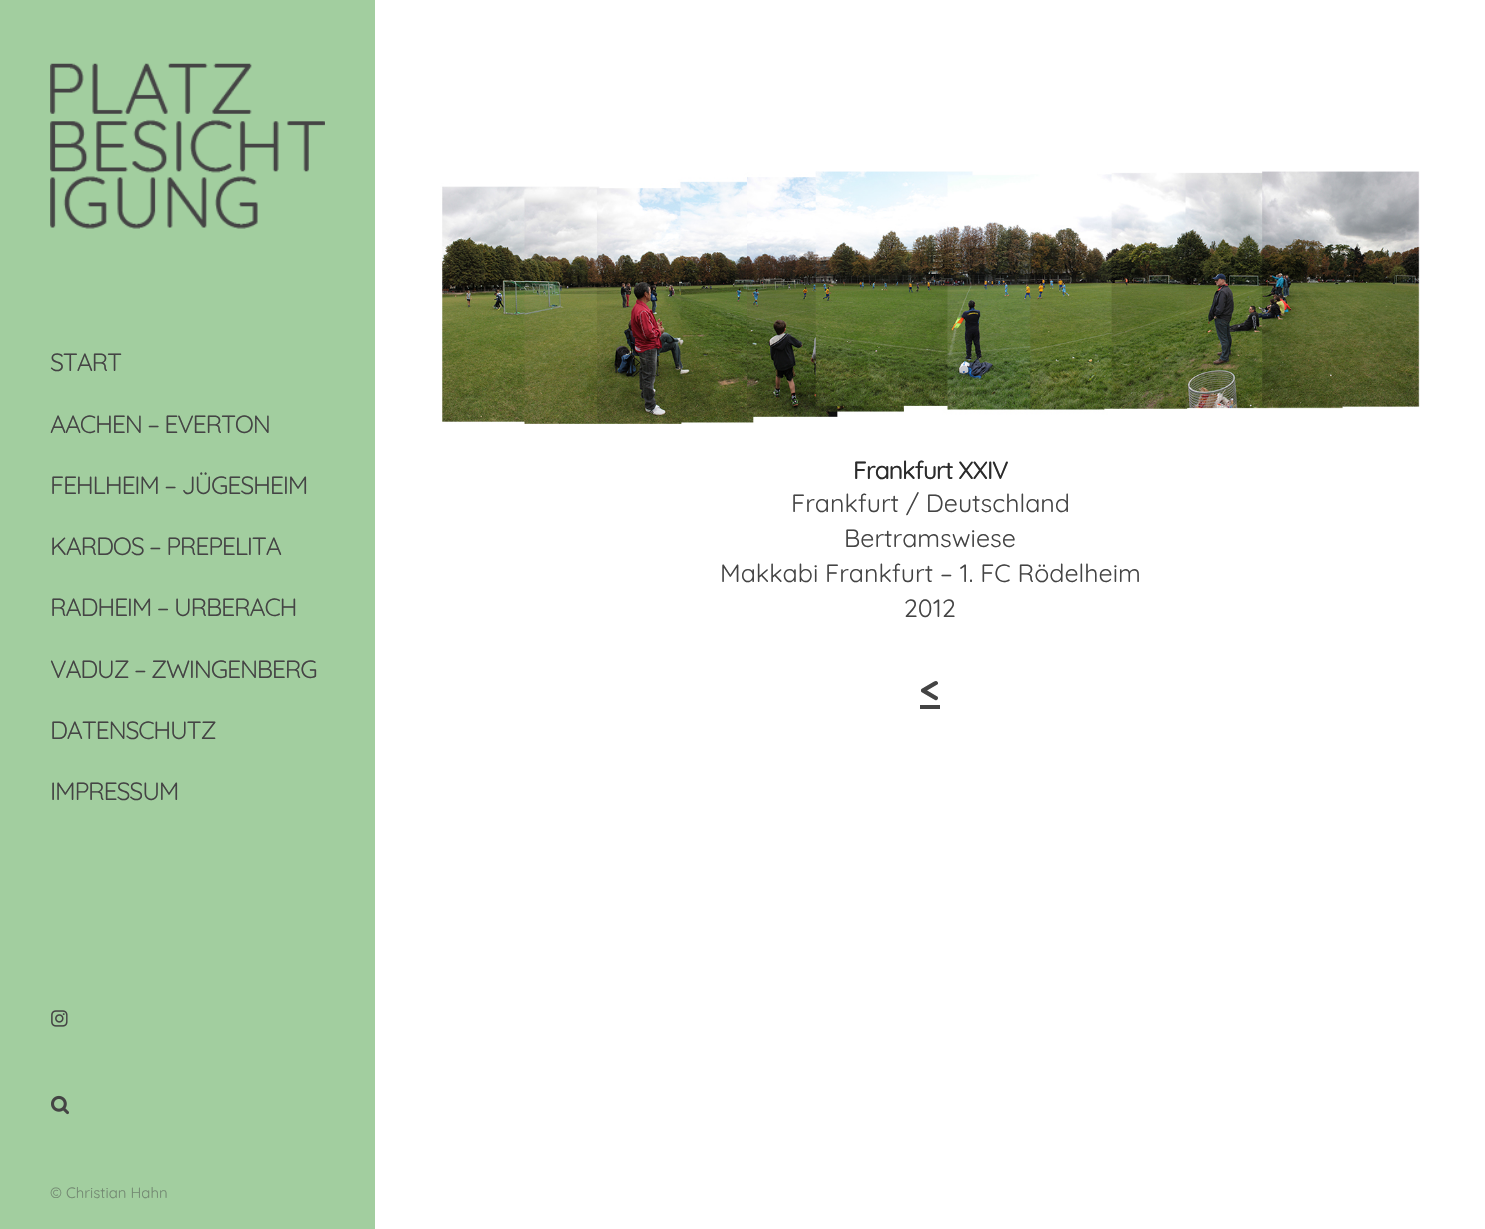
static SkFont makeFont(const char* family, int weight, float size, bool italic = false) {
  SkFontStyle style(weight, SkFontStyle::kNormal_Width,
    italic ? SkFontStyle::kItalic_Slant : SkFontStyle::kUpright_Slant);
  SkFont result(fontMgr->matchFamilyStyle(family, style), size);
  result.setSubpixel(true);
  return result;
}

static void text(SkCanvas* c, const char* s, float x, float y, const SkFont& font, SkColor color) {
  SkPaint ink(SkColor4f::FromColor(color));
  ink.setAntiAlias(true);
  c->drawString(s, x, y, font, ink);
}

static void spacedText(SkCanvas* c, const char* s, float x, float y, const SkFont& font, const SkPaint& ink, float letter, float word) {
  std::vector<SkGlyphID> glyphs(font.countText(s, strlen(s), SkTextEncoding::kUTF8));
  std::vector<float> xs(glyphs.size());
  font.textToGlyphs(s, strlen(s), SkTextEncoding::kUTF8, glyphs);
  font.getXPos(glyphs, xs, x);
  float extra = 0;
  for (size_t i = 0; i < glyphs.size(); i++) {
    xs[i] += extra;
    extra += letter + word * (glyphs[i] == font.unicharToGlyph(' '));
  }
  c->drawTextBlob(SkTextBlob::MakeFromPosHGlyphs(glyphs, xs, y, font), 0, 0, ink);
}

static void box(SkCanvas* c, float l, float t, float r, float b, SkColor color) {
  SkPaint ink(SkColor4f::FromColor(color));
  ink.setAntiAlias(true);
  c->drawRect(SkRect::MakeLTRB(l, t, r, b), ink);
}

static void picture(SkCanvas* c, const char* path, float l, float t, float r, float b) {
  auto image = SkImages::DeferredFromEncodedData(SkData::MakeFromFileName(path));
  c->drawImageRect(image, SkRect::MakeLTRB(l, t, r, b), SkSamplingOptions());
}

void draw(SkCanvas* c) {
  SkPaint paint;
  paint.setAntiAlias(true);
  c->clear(0xffffffff);
  box(c, 0, 0, 375, 1229, 0xffa2ce9f);
  picture(c, "img_01.png", 50, 63, 325, 229);
  SkFont face1 = makeFont("Quicksand", 400, 25);
  paint.setColor(0xff444444);
  spacedText(c, "START", 50, 371, face1, paint, -1.25f, 0);
  spacedText(c, "AACHEN – EVERTON", 50, 433, face1, paint, -1.25f, 0);
  spacedText(c, "FEHLHEIM – JÜGESHEIM", 50, 494, face1, paint, -1.25f, 0);
  spacedText(c, "KARDOS – PREPELITA", 50, 555, face1, paint, -1.25f, 0);
  spacedText(c, "RADHEIM – URBERACH", 50, 616, face1, paint, -1.25f, 0);
  spacedText(c, "VADUZ – ZWINGENBERG", 50, 678, face1, paint, -1.25f, 0);
  spacedText(c, "DATENSCHUTZ", 50, 739, face1, paint, -1.25f, 0);
  spacedText(c, "IMPRESSUM", 50, 800, face1, paint, -1.25f, 0);
  picture(c, "img_02.png", 51, 1010, 68, 1027);
  picture(c, "img_03.png", 51, 1095, 69, 1115);
  SkFont face2 = makeFont("Quicksand", 400, 15);
  text(c, "© Christian Hahn", 50, 1198, face2, 0xff738972);
  picture(c, "img_04.png", 440, 171, 1420, 424);
  SkFont face3 = makeFont("Quicksand", 500, 25);
  paint.setColor(0xff2b2b2b);
  spacedText(c, "Frankfurt XXIV", 853, 479, face3, paint, -1.25f, 0);
  text(c, "Frankfurt / Deutschland", 791, 512, face1, 0xff444444);
  text(c, "Bertramswiese", 844, 547, face1, 0xff444444);
  text(c, "Makkabi Frankfurt – 1. FC Rödelheim", 720, 582, face1, 0xff444444);
  text(c, "2012", 904, 617, face1, 0xff444444);
  SkFont face4 = makeFont("Quicksand", 700, 38);
  paint.setColor(0xff444444);
  spacedText(c, "<", 920, 703, face4, paint, 1, 0);
  box(c, 920, 705, 940, 709, 0xff444444);
}
